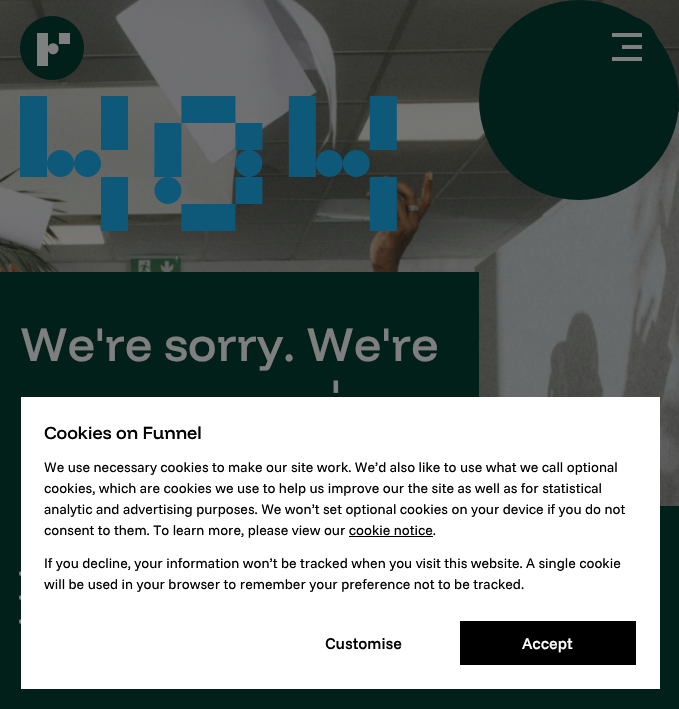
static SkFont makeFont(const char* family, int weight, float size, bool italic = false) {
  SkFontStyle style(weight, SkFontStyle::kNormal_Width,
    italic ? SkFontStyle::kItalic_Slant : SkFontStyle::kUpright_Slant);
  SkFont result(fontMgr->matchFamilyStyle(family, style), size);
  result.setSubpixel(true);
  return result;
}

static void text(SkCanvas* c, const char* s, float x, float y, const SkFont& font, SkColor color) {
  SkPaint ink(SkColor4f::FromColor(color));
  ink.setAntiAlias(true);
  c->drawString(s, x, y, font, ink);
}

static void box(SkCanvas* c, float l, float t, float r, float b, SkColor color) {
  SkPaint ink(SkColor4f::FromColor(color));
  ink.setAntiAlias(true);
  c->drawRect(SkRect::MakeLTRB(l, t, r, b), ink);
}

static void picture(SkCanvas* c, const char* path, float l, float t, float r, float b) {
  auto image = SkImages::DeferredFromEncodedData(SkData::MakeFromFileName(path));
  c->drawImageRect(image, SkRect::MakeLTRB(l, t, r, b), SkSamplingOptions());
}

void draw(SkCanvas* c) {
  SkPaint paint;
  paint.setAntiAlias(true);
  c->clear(0xff013f33);
  picture(c, "img_02.png", 0, 0, 679, 506);
  picture(c, "img_01.png", 20, 16, 84, 80);
  paint.setColor(0xff013f33);
  c->drawCircle(579, 100, 100, paint);
  c->drawCircle(627, 48, 32, paint);
  box(c, 612, 33, 642, 37, 0xffffffff);
  box(c, 622, 45, 642, 49, 0xffffffff);
  box(c, 612, 57, 642, 61, 0xffffffff);
  box(c, 0, 272, 479, 506, 0xff013f33);
  picture(c, "img_03.png", 20, 96, 397, 231);
  SkFont face1 = makeFont("Funnel Display", 500, 48);
  text(c, "We're sorry. We're", 20, 361, face1, 0xffffffff);
  text(c, "'", 331, 413, face1, 0xffffffff);
  paint.setColor(0xffffffff);
  c->drawCircle(21.5f, 573.5f, 2.5f, paint);
  c->drawCircle(21.5f, 597.5f, 2.5f, paint);
  c->drawCircle(21.5f, 621.5f, 2.5f, paint);
  paint.setStyle(SkPaint::kStroke_Style);
  paint.setStrokeWidth(10000);
  paint.setColor(0x80000000);
  c->drawRect(SkRect::MakeLTRB(-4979, -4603, 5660, 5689), paint);
  box(c, 21, 397, 660, 689, 0xffffffff);
  SkFont face2 = makeFont("Funnel Display", 500, 18);
  text(c, "Cookies on Funnel", 44, 439, face2, 0xff000000);
  SkFont face3 = makeFont("Funnel Sans", 400, 14);
  text(c, "We use necessary cookies to make our site work. We’d also like to use what we call optional", 44, 472, face3, 0xff000000);
  text(c, "cookies, which are cookies we use to help us improve our the site as well as for statistical", 44, 493, face3, 0xff000000);
  text(c, "analytic and advertising purposes. We won’t set optional cookies on your device if you do not", 44, 514, face3, 0xff000000);
  text(c, "consent to them. To learn more, please view our cookie notice.", 44, 535, face3, 0xff000000);
  box(c, 349, 536, 433, 537, 0xff000000);
  text(c, "If you decline, your information won’t be tracked when you visit this website. A single cookie", 44, 568, face3, 0xff000000);
  text(c, "will be used in your browser to remember your preference not to be tracked.", 44, 589, face3, 0xff000000);
  SkFont face4 = makeFont("Funnel Sans", 500, 16);
  text(c, "Customise", 325, 649, face4, 0xff000000);
  box(c, 460, 621, 636, 665, 0xff000000);
  text(c, "Accept", 522, 649, face4, 0xffffffff);
}
